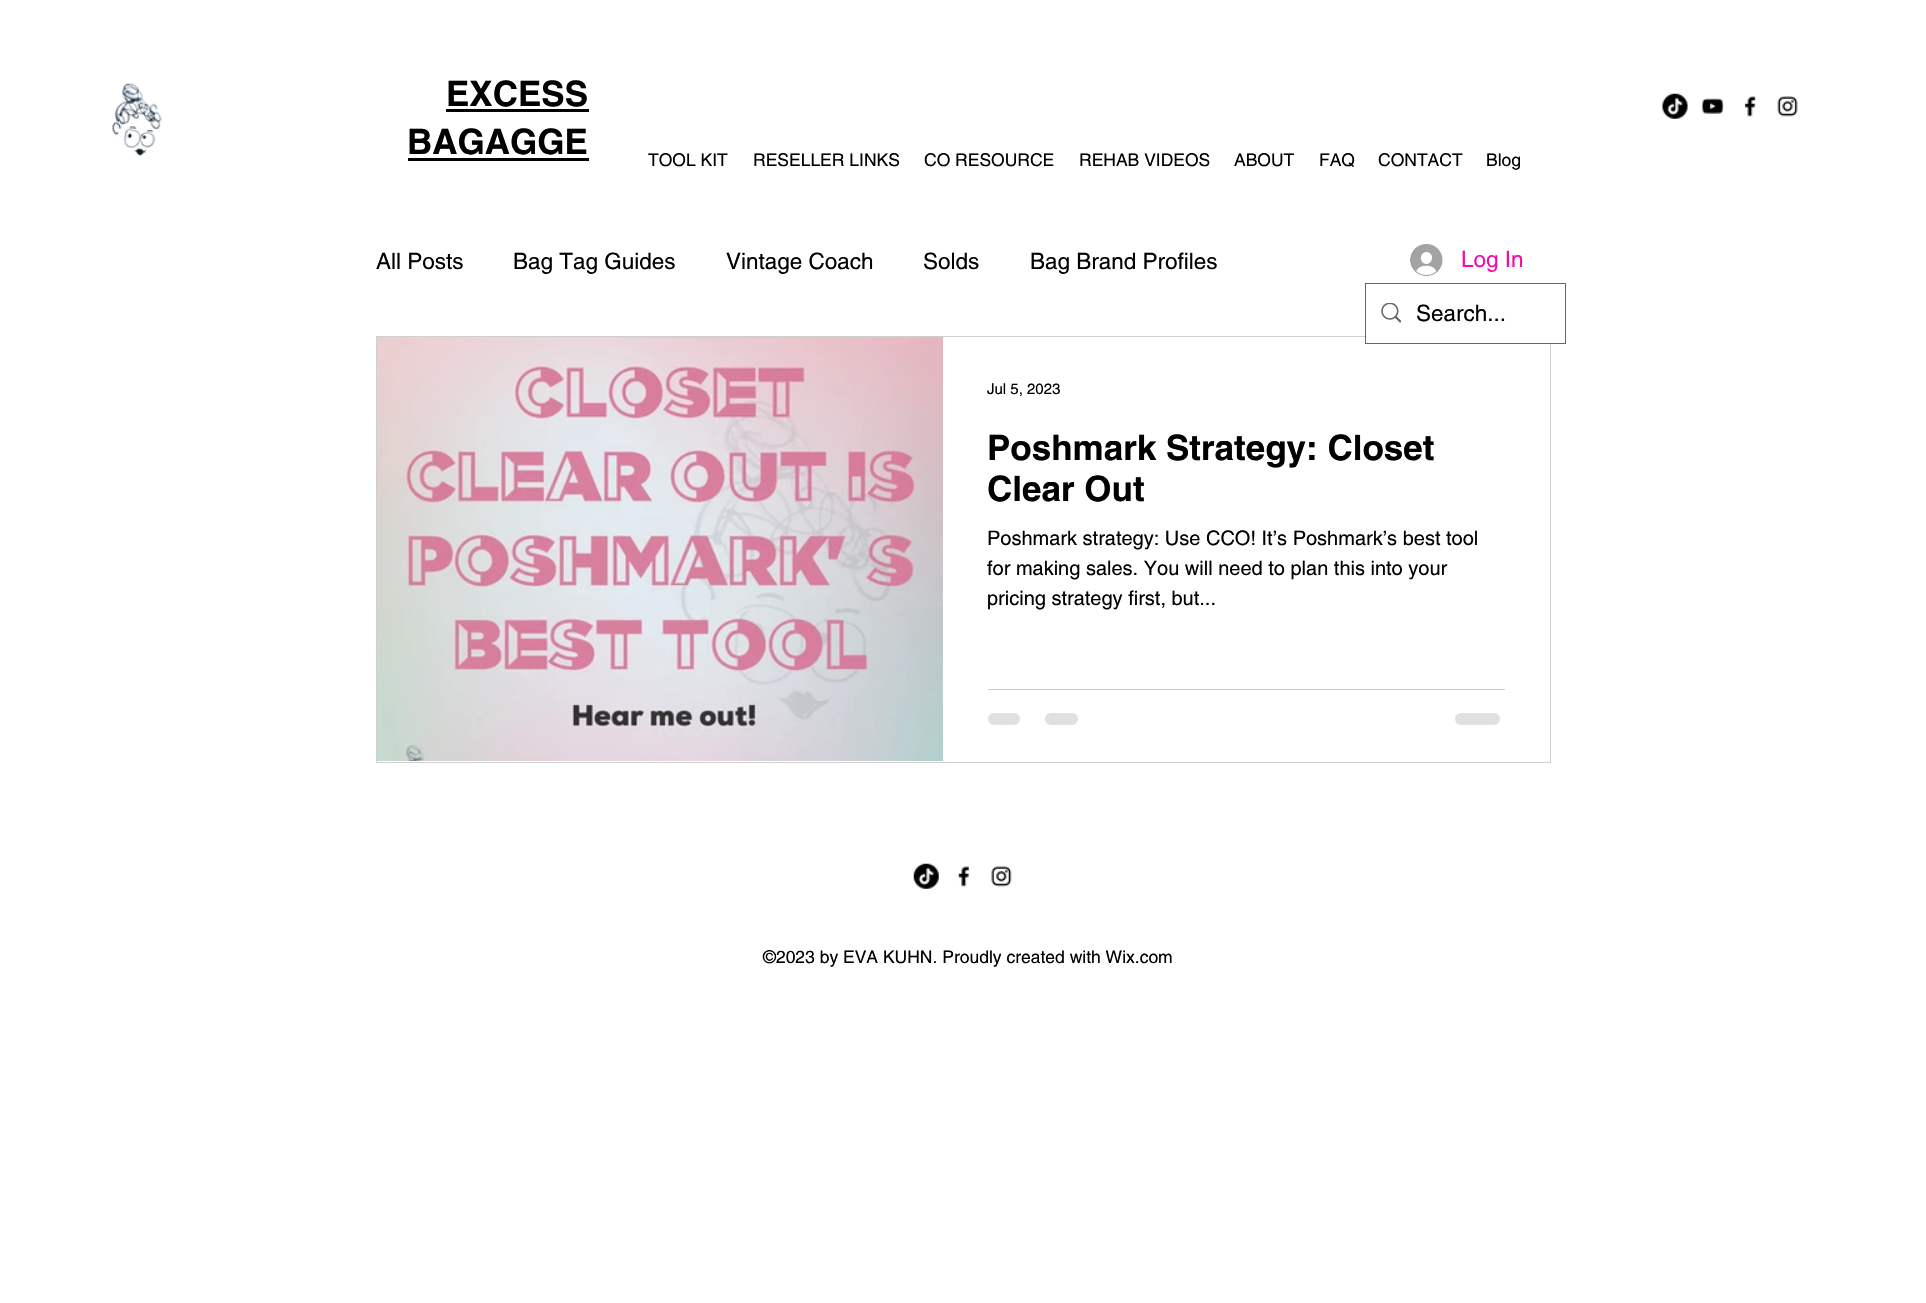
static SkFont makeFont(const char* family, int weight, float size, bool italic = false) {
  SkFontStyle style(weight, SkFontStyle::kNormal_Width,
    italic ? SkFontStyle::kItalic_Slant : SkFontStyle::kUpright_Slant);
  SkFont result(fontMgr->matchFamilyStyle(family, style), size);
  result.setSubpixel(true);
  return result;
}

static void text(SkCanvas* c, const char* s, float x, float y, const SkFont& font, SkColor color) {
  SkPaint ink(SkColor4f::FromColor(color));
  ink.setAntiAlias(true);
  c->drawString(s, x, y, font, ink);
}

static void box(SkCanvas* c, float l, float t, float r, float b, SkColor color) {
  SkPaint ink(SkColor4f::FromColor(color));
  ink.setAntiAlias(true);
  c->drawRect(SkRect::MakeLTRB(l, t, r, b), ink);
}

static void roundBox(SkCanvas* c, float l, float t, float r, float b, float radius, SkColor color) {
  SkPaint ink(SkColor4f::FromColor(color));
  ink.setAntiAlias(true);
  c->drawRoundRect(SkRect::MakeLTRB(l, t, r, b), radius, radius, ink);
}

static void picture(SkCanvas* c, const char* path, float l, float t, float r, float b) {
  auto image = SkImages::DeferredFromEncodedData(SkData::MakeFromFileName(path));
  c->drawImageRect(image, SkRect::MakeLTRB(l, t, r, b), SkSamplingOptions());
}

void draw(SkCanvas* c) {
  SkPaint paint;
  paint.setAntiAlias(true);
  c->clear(0xffffffff);
  SkFont face1 = makeFont("helvetica", 700, 35);
  text(c, "EXCESS", 446, 106, face1, 0xff000000);
  box(c, 446, 109, 589, 112, 0xff000000);
  text(c, "BAGAGGE", 407, 154, face1, 0xff000000);
  box(c, 408, 158, 589, 161, 0xff000000);
  picture(c, "img_01.png", 112, 82, 162, 157);
  picture(c, "img_02.png", 1662, 93, 1688, 119);
  picture(c, "img_03.png", 1701, 98, 1724, 114);
  picture(c, "img_04.png", 1744, 96, 1756, 117);
  picture(c, "img_05.png", 1777, 96, 1798, 117);
  SkFont face2 = makeFont("helvetica", 400, 17.5f);
  text(c, "TOOL KIT", 648, 166, face2, 0xff000000);
  text(c, "RESELLER LINKS", 753, 166, face2, 0xff000000);
  text(c, "CO RESOURCE", 924, 166, face2, 0xff000000);
  text(c, "REHAB VIDEOS", 1079, 166, face2, 0xff000000);
  text(c, "ABOUT", 1234, 166, face2, 0xff000000);
  text(c, "FAQ", 1319, 166, face2, 0xff000000);
  text(c, "CONTACT", 1378, 166, face2, 0xff000000);
  text(c, "Blog", 1486, 166, face2, 0xff000000);
  SkFont face3 = makeFont("helvetica", 400, 22.5f);
  text(c, "All Posts", 376, 269, face3, 0xff000000);
  text(c, "Bag Tag Guides", 513, 269, face3, 0xff000000);
  text(c, "Vintage Coach", 726, 269, face3, 0xff000000);
  text(c, "Solds", 923, 269, face3, 0xff000000);
  text(c, "Bag Brand Profiles", 1030, 269, face3, 0xff000000);
  paint.setStyle(SkPaint::kStroke_Style);
  paint.setStrokeWidth(1);
  paint.setColor(0xffcfcfcf);
  c->drawRect(SkRect::MakeLTRB(376.5f, 336.5f, 1550.5f, 762.5f), paint);
  picture(c, "img_06.png", 377, 337, 944, 761);
  picture(c, "img_07.png", 378, 338, 943, 761);
  box(c, 943, 338, 944, 761, 0xffffffff);
  SkFont face4 = makeFont("helvetica", 400, 15);
  text(c, "Jul 5, 2023", 987, 394, face4, 0xff000000);
  text(c, "Poshmark Strategy: Closet", 987, 460, face1, 0xff000000);
  text(c, "Clear Out", 987, 501, face1, 0xff000000);
  SkFont face5 = makeFont("helvetica", 400, 20);
  text(c, "Poshmark strategy: Use CCO! It’s Poshmark’s best tool", 987, 545, face5, 0xff000000);
  text(c, "for making sales. You will need to plan this into your", 987, 575, face5, 0xff000000);
  text(c, "pricing strategy first, but...", 987, 605, face5, 0xff000000);
  box(c, 988, 689, 1505, 690, 0xffcccccc);
  roundBox(c, 988, 713, 1020, 725, 6, 0xffe0e0e0);
  roundBox(c, 1045, 713, 1078, 725, 6, 0xffe0e0e0);
  roundBox(c, 1455, 713, 1500, 725, 6, 0xffe0e0e0);
  picture(c, "img_08.png", 1410, 244, 1443, 276);
  text(c, "Log In", 1461, 267, face3, 0xfff20ca6);
  paint.setColor(0x99000000);
  c->drawRect(SkRect::MakeLTRB(1365.5f, 283.5f, 1565.5f, 343.5f), paint);
  box(c, 1366, 336, 1551, 343, 0xffffffff);
  picture(c, "img_09.png", 1381, 303, 1401, 323);
  text(c, "Search...", 1416, 321, face3, 0xff000000);
  picture(c, "img_10.png", 913, 863, 939, 889);
  picture(c, "img_11.png", 958, 866, 970, 887);
  picture(c, "img_12.png", 991, 866, 1012, 887);
  text(c, "©2023 by EVA KUHN. Proudly created with Wix.com", 763, 963, face2, 0xff000000);
}
